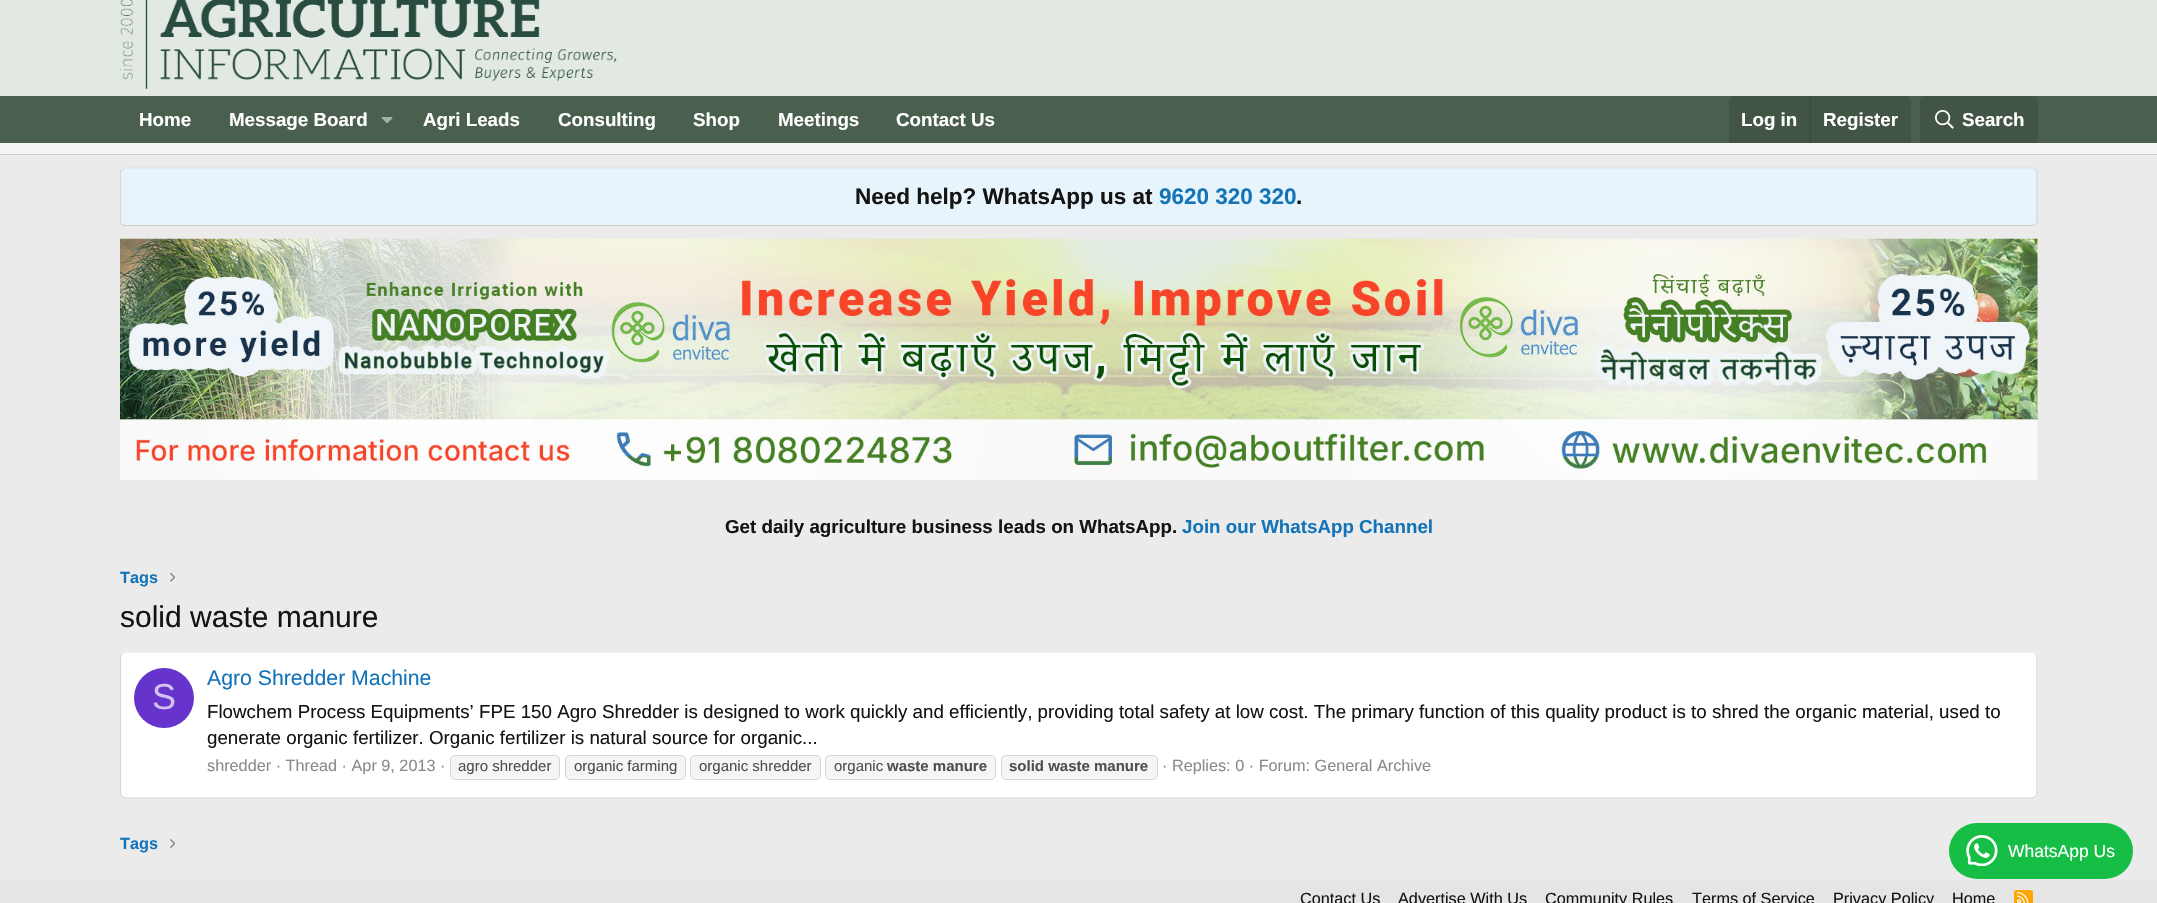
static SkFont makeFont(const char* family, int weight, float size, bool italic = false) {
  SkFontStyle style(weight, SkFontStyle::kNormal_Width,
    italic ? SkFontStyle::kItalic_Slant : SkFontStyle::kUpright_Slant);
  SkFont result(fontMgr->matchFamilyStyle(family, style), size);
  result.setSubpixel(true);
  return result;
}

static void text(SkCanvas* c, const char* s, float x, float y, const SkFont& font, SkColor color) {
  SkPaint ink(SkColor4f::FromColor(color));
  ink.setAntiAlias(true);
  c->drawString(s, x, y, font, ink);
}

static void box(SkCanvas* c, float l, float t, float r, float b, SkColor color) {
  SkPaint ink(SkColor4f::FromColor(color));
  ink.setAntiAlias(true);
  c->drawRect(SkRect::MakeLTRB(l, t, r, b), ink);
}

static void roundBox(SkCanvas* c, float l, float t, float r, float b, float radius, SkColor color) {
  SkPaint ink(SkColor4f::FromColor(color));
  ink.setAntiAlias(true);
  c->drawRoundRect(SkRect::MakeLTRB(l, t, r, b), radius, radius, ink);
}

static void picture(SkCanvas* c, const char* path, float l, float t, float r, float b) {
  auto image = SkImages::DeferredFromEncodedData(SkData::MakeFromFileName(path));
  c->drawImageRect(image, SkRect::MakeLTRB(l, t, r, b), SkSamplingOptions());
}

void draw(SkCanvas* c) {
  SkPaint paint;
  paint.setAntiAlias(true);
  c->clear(0xffebebeb);
  box(c, 0, 0, 2157, 96, 0xffe2e9e3);
  picture(c, "img_01.png", 120, 0, 617, 89);
  box(c, 0, 96, 2157, 143, 0xff4a5f4d);
  SkFont face1 = makeFont("Liberation Sans", 700, 18.75f);
  text(c, "Home", 139, 126, face1, 0xffffffff);
  text(c, "Message Board", 229, 126, face1, 0xffffffff);
  picture(c, "img_02.png", 381, 117, 393, 124);
  text(c, "Agri Leads", 423, 126, face1, 0xffffffff);
  text(c, "Consulting", 558, 126, face1, 0xffffffff);
  text(c, "Shop", 693, 126, face1, 0xffffffff);
  text(c, "Meetings", 778, 126, face1, 0xffffffff);
  text(c, "Contact Us", 896, 126, face1, 0xffffffff);
  paint.setColor(0xff425444);
  c->drawPath(SkPathBuilder().moveTo(1734, 96).lineTo(1906, 96).cubicTo(1909, 96, 1911, 98, 1911, 101).lineTo(1911, 143).lineTo(1729, 143).lineTo(1729, 101).cubicTo(1729, 98, 1731, 96, 1734, 96).close().detach(), paint);
  text(c, "Log in", 1741, 126, face1, 0xffffffff);
  box(c, 1810, 96, 1811, 143, 0xff3b4a3d);
  text(c, "Register", 1823, 126, face1, 0xffffffff);
  c->drawPath(SkPathBuilder().moveTo(1925, 96).lineTo(2033, 96).cubicTo(2036, 96, 2038, 98, 2038, 101).lineTo(2038, 143).lineTo(1920, 143).lineTo(1920, 101).cubicTo(1920, 98, 1922, 96, 1925, 96).close().detach(), paint);
  picture(c, "img_03.png", 1935, 110, 1954, 129);
  text(c, "Search", 1962, 126, face1, 0xffffffff);
  box(c, 0, 143, 2157, 154, 0xfff5f5f5);
  box(c, 0, 154, 2157, 155, 0xffcccccc);
  roundBox(c, 120, 168, 2038, 226, 5, 0xffe8f4fc);
  paint.setStyle(SkPaint::kStroke_Style);
  paint.setStrokeWidth(1.2f);
  paint.setColor(0xffe0e0e0);
  c->drawPath(SkPathBuilder().moveTo(122, 169.5f).lineTo(125, 168).lineTo(2032.5f, 168).lineTo(2035.5f, 169.5f).detach(), paint);
  paint.setColor(0xffd6d6d6);
  c->drawPath(SkPathBuilder().moveTo(2035.5f, 169.5f).cubicTo(2036.5f, 170, 2037, 171.5f, 2037, 172.5f).lineTo(2037, 221).cubicTo(2037, 222.5f, 2036.5f, 223.5f, 2035.5f, 224.5f).detach(), paint);
  paint.setColor(0xffcccccc);
  c->drawPath(SkPathBuilder().moveTo(2035.5f, 224.5f).lineTo(2032.5f, 225.5f).lineTo(125, 225.5f).lineTo(122, 224.5f).detach(), paint);
  paint.setColor(0xffd6d6d6);
  c->drawPath(SkPathBuilder().moveTo(122, 224.5f).cubicTo(121, 223.5f, 120.5f, 222.5f, 120.5f, 221).lineTo(120.5f, 172.5f).cubicTo(120.5f, 171.5f, 121, 170, 122, 169.5f).detach(), paint);
  SkFont face2 = makeFont("Liberation Sans", 700, 22.5f);
  text(c, "Need help? WhatsApp us at", 855, 204, face2, 0xff141414);
  text(c, "9620 320 320", 1159, 204, face2, 0xff1474b8);
  text(c, ".", 1296, 204, face2, 0xff141414);
  picture(c, "img_04.png", 120, 238, 2038, 480);
  text(c, "Get daily agriculture business leads on WhatsApp.", 725, 533, face1, 0xff141414);
  text(c, "Join our WhatsApp Channel", 1182, 533, face1, 0xff1474b8);
  SkFont face3 = makeFont("Liberation Sans", 700, 16.25f);
  text(c, "Tags", 120, 583, face3, 0xff1474b8);
  picture(c, "img_05.png", 170, 572, 175, 582);
  SkFont face4 = makeFont("Liberation Sans", 400, 30);
  text(c, "solid waste manure", 120, 627, face4, 0xff141414);
  roundBox(c, 120, 651, 2038, 799, 5, 0xffffffff);
  paint.setColor(0xffe0e0e0);
  c->drawPath(SkPathBuilder().moveTo(122, 653).lineTo(125, 652).lineTo(2032.5f, 652).lineTo(2035.5f, 653).detach(), paint);
  paint.setColor(0xffd6d6d6);
  c->drawPath(SkPathBuilder().moveTo(2035.5f, 653).lineTo(2037, 656).lineTo(2037, 794).lineTo(2035.5f, 797).detach(), paint);
  paint.setColor(0xffcccccc);
  c->drawPath(SkPathBuilder().moveTo(2035.5f, 797).lineTo(2032.5f, 798).lineTo(125, 798).lineTo(122, 797).detach(), paint);
  paint.setColor(0xffd6d6d6);
  c->drawPath(SkPathBuilder().moveTo(122, 797).lineTo(120.5f, 794).lineTo(120.5f, 679).lineTo(120.5f, 656).lineTo(122, 653).detach(), paint);
  paint.setStyle(SkPaint::kFill_Style);
  paint.setColor(0xff6633cc);
  c->drawCircle(164, 698, 30, paint);
  SkFont face5 = makeFont("Liberation Sans", 400, 36);
  text(c, "S", 152, 709, face5, 0xffd1c2f0);
  SkFont face6 = makeFont("Liberation Sans", 400, 21.25f);
  text(c, "Agro Shredder Machine", 207, 685, face6, 0xff1474b8);
  SkFont face7 = makeFont("Liberation Sans", 400, 18.75f);
  text(c, "Flowchem Process Equipments’ FPE 150 Agro Shredder is designed to work quickly and efficiently, providing total safety at low cost. The primary function of this quality product is to shred the organic material, used to", 207, 718, face7, 0xff141414);
  text(c, "generate organic fertilizer. Organic fertilizer is natural source for organic...", 207, 744, face7, 0xff141414);
  SkFont face8 = makeFont("Liberation Sans", 400, 16.25f);
  text(c, "shredder · Thread · Apr 9, 2013 ·", 207, 771, face8, 0xff8a8a8a);
  paint.setColor(0xfff5f5f5);
  c->drawRoundRect(SkRect::MakeLTRB(450.5f, 755.5f, 559.5f, 779.5f), 4.5f, 4.5f, paint);
  paint.setStyle(SkPaint::kStroke_Style);
  paint.setStrokeWidth(1);
  paint.setColor(0xffd6d6d6);
  c->drawRoundRect(SkRect::MakeLTRB(450.5f, 755.5f, 559.5f, 779.5f), 4.5f, 4.5f, paint);
  SkFont face9 = makeFont("Liberation Sans", 400, 15);
  text(c, "agro shredder", 458, 771, face9, 0xff4f4f4f);
  paint.setStyle(SkPaint::kFill_Style);
  paint.setColor(0xfff5f5f5);
  c->drawRoundRect(SkRect::MakeLTRB(565.5f, 755.5f, 685.5f, 779.5f), 4.5f, 4.5f, paint);
  paint.setStyle(SkPaint::kStroke_Style);
  paint.setColor(0xffd6d6d6);
  c->drawRoundRect(SkRect::MakeLTRB(565.5f, 755.5f, 685.5f, 779.5f), 4.5f, 4.5f, paint);
  text(c, "organic farming", 574, 771, face9, 0xff4f4f4f);
  paint.setStyle(SkPaint::kFill_Style);
  paint.setColor(0xfff5f5f5);
  c->drawRoundRect(SkRect::MakeLTRB(690.5f, 755.5f, 820.5f, 779.5f), 4.5f, 4.5f, paint);
  paint.setStyle(SkPaint::kStroke_Style);
  paint.setColor(0xffd6d6d6);
  c->drawRoundRect(SkRect::MakeLTRB(690.5f, 755.5f, 820.5f, 779.5f), 4.5f, 4.5f, paint);
  text(c, "organic shredder", 699, 771, face9, 0xff4f4f4f);
  paint.setStyle(SkPaint::kFill_Style);
  paint.setColor(0xfff5f5f5);
  c->drawRoundRect(SkRect::MakeLTRB(825.5f, 755.5f, 995.5f, 779.5f), 4.5f, 4.5f, paint);
  paint.setStyle(SkPaint::kStroke_Style);
  paint.setColor(0xffd6d6d6);
  c->drawRoundRect(SkRect::MakeLTRB(825.5f, 755.5f, 995.5f, 779.5f), 4.5f, 4.5f, paint);
  text(c, "organic", 834, 771, face9, 0xff4f4f4f);
  SkFont face10 = makeFont("Liberation Sans", 700, 15);
  text(c, "waste manure", 887, 771, face10, 0xff4f4f4f);
  paint.setStyle(SkPaint::kFill_Style);
  paint.setColor(0xfff5f5f5);
  c->drawRoundRect(SkRect::MakeLTRB(1001.5f, 755.5f, 1157.5f, 779.5f), 4.5f, 4.5f, paint);
  paint.setStyle(SkPaint::kStroke_Style);
  paint.setColor(0xffd6d6d6);
  c->drawRoundRect(SkRect::MakeLTRB(1001.5f, 755.5f, 1157.5f, 779.5f), 4.5f, 4.5f, paint);
  text(c, "solid waste manure", 1009, 771, face10, 0xff4f4f4f);
  text(c, "· Replies: 0 · Forum: General Archive", 1162, 771, face8, 0xff8a8a8a);
  text(c, "Tags", 120, 849, face3, 0xff1474b8);
  picture(c, "img_06.png", 170, 839, 175, 848);
  box(c, 0, 880, 2157, 903, 0xffe5e5e5);
  text(c, "Contact Us", 1300, 904, face8, 0xff141414);
  text(c, "Advertise With Us", 1398, 904, face8, 0xff141414);
  text(c, "Community Rules", 1545, 904, face8, 0xff141414);
  text(c, "Terms of Service", 1692, 904, face8, 0xff141414);
  text(c, "Privacy Policy", 1833, 904, face8, 0xff141414);
  text(c, "Home", 1952, 904, face8, 0xff141414);
  roundBox(c, 2014, 890, 2033, 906, 2.5f, 0xffffa500);
  picture(c, "img_07.png", 2017, 892, 2029, 903);
  roundBox(c, 1949, 823, 2133, 879, 28, 0xff16be45);
  picture(c, "img_08.png", 1966, 835, 1998, 866);
  SkFont face11 = makeFont("Liberation Sans", 400, 17.5f);
  text(c, "WhatsApp Us", 2008, 857, face11, 0xffffffff);
}
